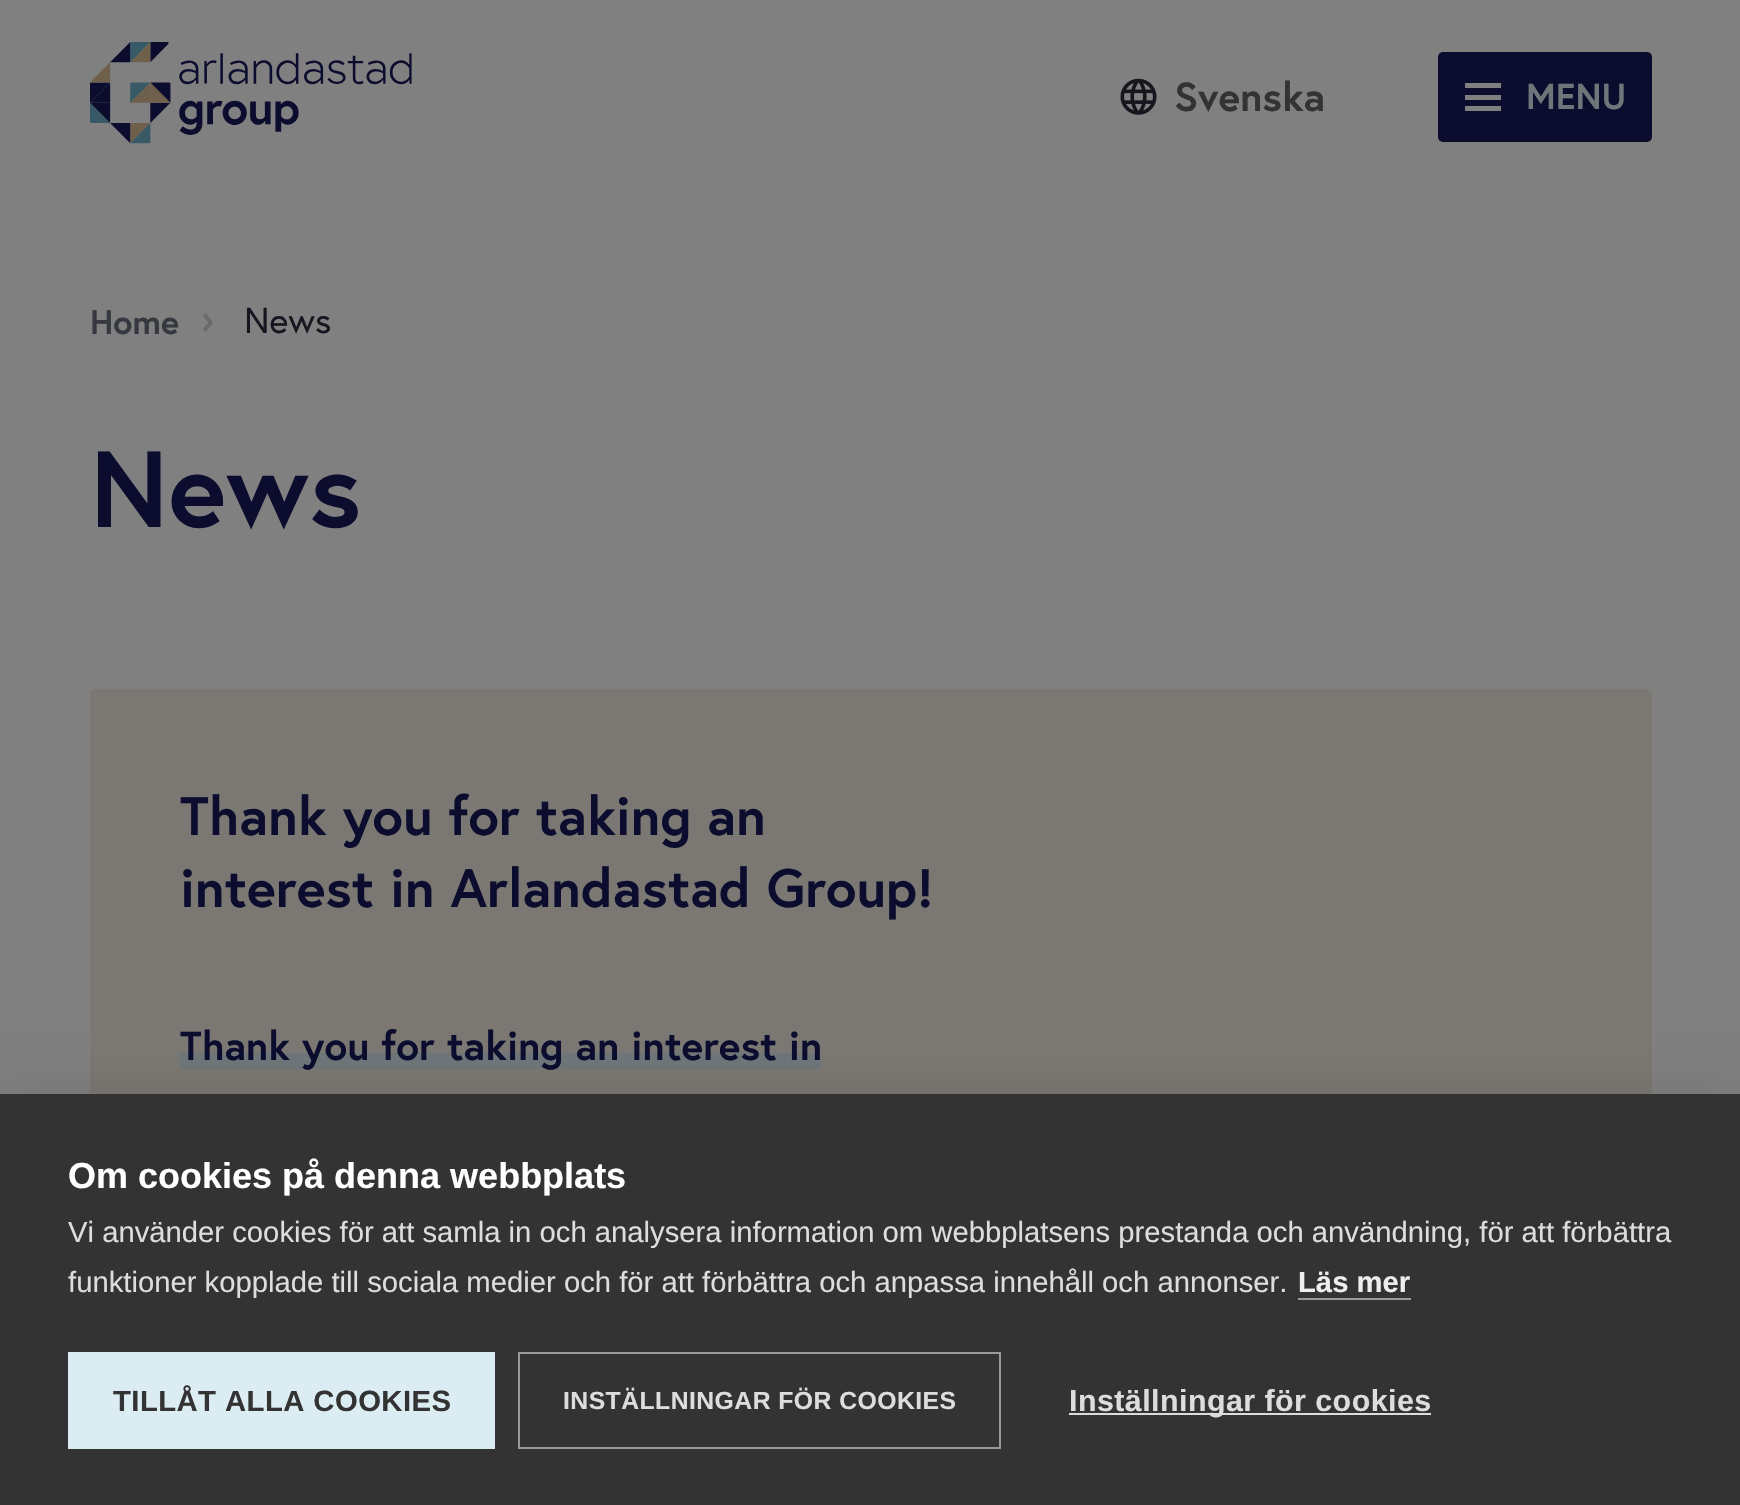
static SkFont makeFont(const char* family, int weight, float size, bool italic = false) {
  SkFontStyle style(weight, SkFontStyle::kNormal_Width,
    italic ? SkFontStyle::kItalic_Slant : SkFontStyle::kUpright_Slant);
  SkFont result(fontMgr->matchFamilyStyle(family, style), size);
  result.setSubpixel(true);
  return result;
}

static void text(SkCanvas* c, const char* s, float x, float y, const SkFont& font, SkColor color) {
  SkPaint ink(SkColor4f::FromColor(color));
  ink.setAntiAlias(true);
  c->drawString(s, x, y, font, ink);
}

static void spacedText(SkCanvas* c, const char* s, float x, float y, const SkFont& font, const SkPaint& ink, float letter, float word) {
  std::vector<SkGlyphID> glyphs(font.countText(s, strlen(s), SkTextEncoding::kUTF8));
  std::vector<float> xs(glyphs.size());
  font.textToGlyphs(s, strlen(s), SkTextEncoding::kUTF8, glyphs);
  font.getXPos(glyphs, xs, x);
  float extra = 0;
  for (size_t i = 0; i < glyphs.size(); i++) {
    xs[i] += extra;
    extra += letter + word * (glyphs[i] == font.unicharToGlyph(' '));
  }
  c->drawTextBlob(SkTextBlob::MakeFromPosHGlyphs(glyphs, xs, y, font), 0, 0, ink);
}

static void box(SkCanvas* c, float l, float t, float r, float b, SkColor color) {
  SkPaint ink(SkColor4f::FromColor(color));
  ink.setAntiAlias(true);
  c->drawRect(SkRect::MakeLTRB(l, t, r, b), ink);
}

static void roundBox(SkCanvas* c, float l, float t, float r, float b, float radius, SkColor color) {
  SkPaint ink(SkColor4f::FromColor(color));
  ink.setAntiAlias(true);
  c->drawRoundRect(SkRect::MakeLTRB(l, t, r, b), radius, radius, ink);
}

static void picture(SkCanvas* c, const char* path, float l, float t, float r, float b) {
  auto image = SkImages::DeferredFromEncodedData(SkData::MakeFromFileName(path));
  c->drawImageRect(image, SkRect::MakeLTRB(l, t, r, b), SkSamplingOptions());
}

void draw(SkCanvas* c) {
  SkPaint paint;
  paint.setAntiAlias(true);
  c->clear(0xff808080);
  picture(c, "img_01.png", 90, 42, 412, 144);
  picture(c, "img_02.png", 1120, 78, 1157, 115);
  SkFont face1 = makeFont("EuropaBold", 700, 40.5f);
  text(c, "Svenska", 1174, 111, face1, 0xff333333);
  roundBox(c, 1438, 52, 1652, 142, 5, 0xff0c0d2e);
  box(c, 1465, 83, 1501, 88, 0xff808080);
  SkFont face2 = makeFont("EuropaBold", 700, 36);
  text(c, "MENU", 1526, 109, face2, 0xff6e7679);
  box(c, 1465, 95, 1501, 100, 0xff808080);
  box(c, 1465, 106, 1501, 111, 0xff808080);
  SkFont face3 = makeFont("EuropaBold", 700, 34);
  text(c, "Home", 90, 334, face3, 0xff363940);
  paint.setColor(0xff6b6b6e);
  c->drawPath(SkPathBuilder().moveTo(206, 313).lineTo(213, 322.5f).lineTo(206, 332).lineTo(202.5f, 329.5f).lineTo(208, 322.5f).lineTo(202.5f, 315.5f).close().detach(), paint);
  SkFont face4 = makeFont("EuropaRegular", 400, 36);
  text(c, "News", 244, 333, face4, 0xff15161f);
  SkFont face5 = makeFont("EuropaBold", 700, 108);
  text(c, "News", 90, 527, face5, 0xff0c0d2e);
  roundBox(c, 90, 689, 1652, 1271, 5, 0xff7b7873);
  SkFont face6 = makeFont("EuropaBold", 700, 54);
  text(c, "Thank you for taking an", 180, 835, face6, 0xff0c0d2e);
  text(c, "interest in Arlandastad Group!", 180, 907, face6, 0xff0c0d2e);
  box(c, 180, 1053, 821, 1069, 0xff6e7679);
  text(c, "Thank you for taking an interest in", 180, 1060, face1, 0xff0c0d2e);
  paint.setColor(0x1a000000);
  paint.setMaskFilter(SkMaskFilter::MakeBlur(kNormal_SkBlurStyle, 22.5f));
  c->drawRect(SkRect::MakeLTRB(0, 1094, 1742, 1505), paint);
  paint.setMaskFilter(nullptr);
  box(c, 0, 1094, 1740, 1505, 0xff333333);
  SkFont face7 = makeFont("Liberation Sans", 700, 36);
  text(c, "Om cookies på denna webbplats", 68, 1188, face7, 0xffffffff);
  SkFont face8 = makeFont("Liberation Sans", 400, 29.25f);
  text(c, "Vi använder cookies för att samla in och analysera information om webbplatsens prestanda och användning, för att förbättra", 68, 1242, face8, 0xffdddddd);
  text(c, "funktioner kopplade till sociala medier och för att förbättra och anpassa innehåll och annonser.", 68, 1292, face8, 0xffdddddd);
  SkFont face9 = makeFont("Liberation Sans", 700, 29.25f);
  text(c, "Läs mer", 1298, 1292, face9, 0xffeeeeee);
  box(c, 1298, 1298, 1411, 1300, 0xff999999);
  box(c, 68, 1352, 495, 1449, 0xffdbecf2);
  paint.setColor(0xff333333);
  spacedText(c, "TILLÅT ALLA COOKIES", 113, 1411, face9, paint, 0.45f, 0);
  paint.setStyle(SkPaint::kStroke_Style);
  paint.setStrokeWidth(2);
  paint.setColor(0xff999999);
  c->drawRect(SkRect::MakeLTRB(519, 1353, 1000, 1448), paint);
  SkFont face10 = makeFont("Liberation Sans", 700, 24.75f);
  paint.setStyle(SkPaint::kFill_Style);
  paint.setColor(0xffdddddd);
  spacedText(c, "INSTÄLLNINGAR FÖR COOKIES", 563, 1409, face10, paint, 0.45f, 0);
  box(c, 1069, 1413, 1431, 1415, 0xffdddddd);
  SkFont face11 = makeFont("Liberation Sans", 700, 30.4f);
  spacedText(c, "Inställningar för cookies", 1069, 1411, face11, paint, 0.45f, 0);
}
